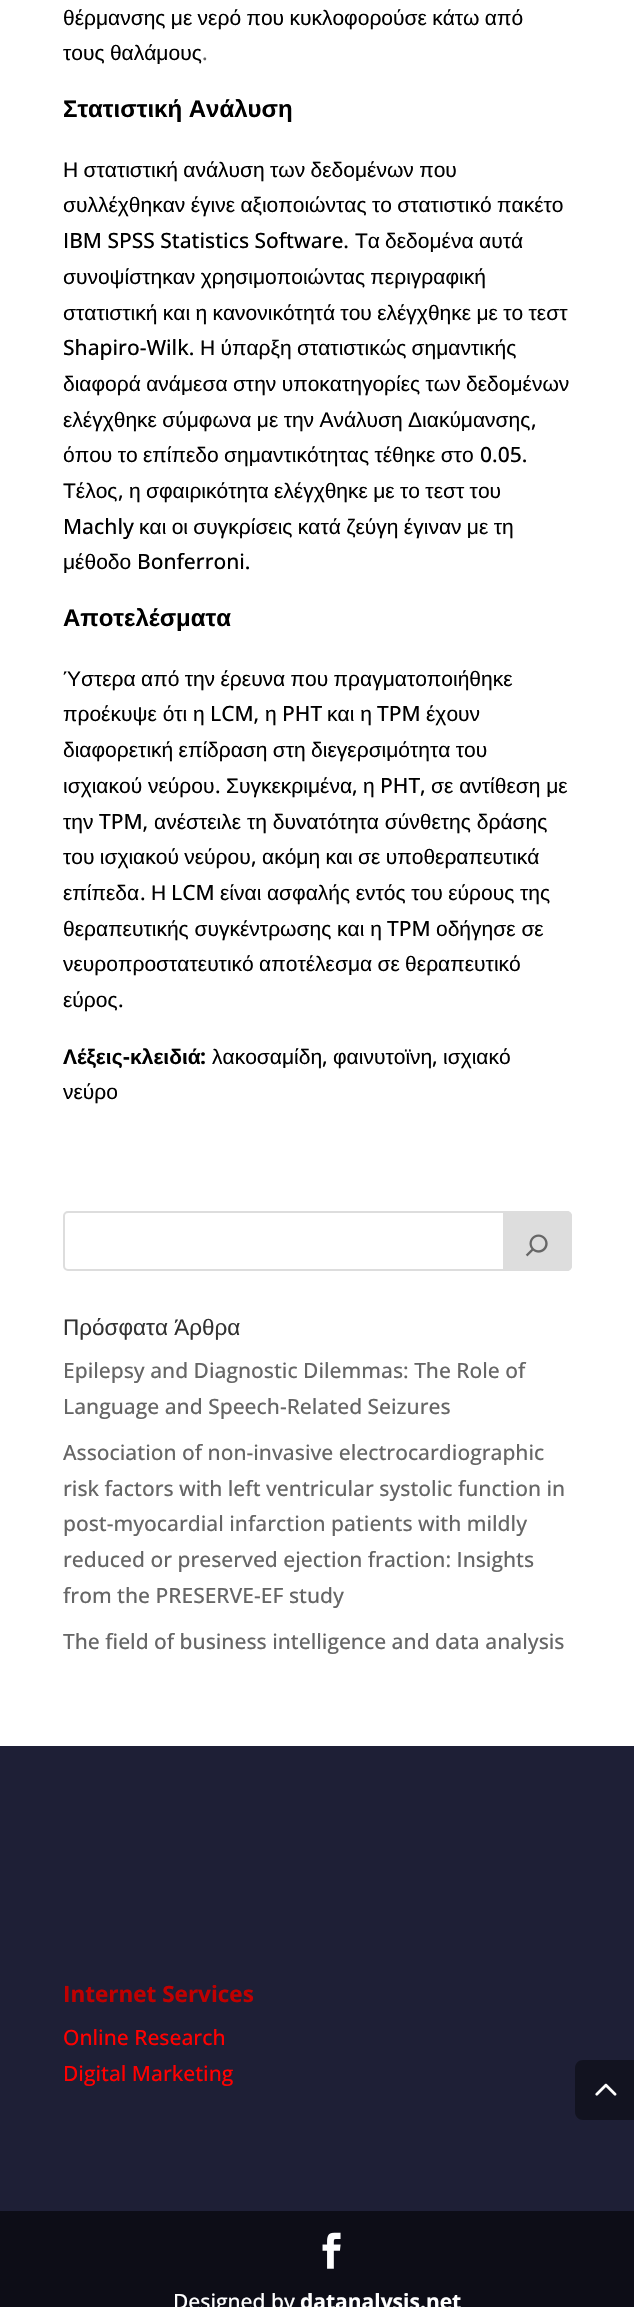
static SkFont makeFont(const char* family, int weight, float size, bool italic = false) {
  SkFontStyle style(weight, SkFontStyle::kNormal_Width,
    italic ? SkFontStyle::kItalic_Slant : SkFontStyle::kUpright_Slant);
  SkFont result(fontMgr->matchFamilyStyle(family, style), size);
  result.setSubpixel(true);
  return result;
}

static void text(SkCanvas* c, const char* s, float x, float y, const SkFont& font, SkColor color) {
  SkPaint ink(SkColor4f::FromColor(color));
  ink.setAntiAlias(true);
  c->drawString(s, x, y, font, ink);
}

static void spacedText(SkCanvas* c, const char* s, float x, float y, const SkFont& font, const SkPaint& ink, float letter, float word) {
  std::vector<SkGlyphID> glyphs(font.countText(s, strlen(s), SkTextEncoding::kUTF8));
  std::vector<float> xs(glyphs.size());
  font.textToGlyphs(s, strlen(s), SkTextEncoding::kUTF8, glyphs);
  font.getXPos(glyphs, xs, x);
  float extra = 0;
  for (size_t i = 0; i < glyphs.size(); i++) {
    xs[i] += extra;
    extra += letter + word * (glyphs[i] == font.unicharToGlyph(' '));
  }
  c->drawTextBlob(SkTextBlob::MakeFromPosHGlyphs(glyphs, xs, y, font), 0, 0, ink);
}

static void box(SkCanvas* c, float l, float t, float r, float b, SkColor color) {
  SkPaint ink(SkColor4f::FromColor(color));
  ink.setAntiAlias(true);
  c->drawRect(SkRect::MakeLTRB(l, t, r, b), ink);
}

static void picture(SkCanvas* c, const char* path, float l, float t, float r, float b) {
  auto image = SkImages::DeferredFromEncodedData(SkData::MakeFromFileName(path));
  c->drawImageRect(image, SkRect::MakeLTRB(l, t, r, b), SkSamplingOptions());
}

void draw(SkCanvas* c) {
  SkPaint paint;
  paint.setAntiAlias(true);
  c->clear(0xffffffff);
  SkFont face1 = makeFont("Liberation Sans", 400, 21);
  paint.setColor(0xff000000);
  spacedText(c, "θέρμανσης με νερό που κυκλοφορούσε κάτω από", 63, 25, face1, paint, 0, -0.5f);
  spacedText(c, "τους θαλάμους", 63, 60, face1, paint, 0, -0.5f);
  SkFont face2 = makeFont("Open Sans", 500, 21);
  text(c, ".", 202, 60, face2, 0xff666666);
  SkFont face3 = makeFont("Liberation Sans", 700, 24);
  text(c, "Στατιστική Ανάλυση", 63, 117, face3, 0xff000000);
  spacedText(c, "Η στατιστική ανάλυση των δεδομένων που", 63, 177, face1, paint, 0, -0.5f);
  spacedText(c, "συλλέχθηκαν έγινε αξιοποιώντας το στατιστικό πακέτο", 63, 212, face1, paint, 0, -0.5f);
  text(c, "IBM SPSS Statistics Software.", 63, 248, face2, 0xff000000);
  text(c, "Τα", 355, 248, face1, 0xff000000);
  text(c, "δεδομένα", 385, 248, face1, 0xff000000);
  text(c, "αυτά", 479, 248, face1, 0xff000000);
  spacedText(c, "συνοψίστηκαν χρησιμοποιώντας περιγραφική", 63, 284, face1, paint, 0, -0.5f);
  spacedText(c, "στατιστική και η κανονικότητά του ελέγχθηκε με το τεστ", 63, 320, face1, paint, 0, -0.5f);
  text(c, "Shapiro-Wilk.", 63, 355, face2, 0xff000000);
  spacedText(c, "Η ύπαρξη στατιστικώς σημαντικής", 200, 355, face1, paint, 0, -0.5f);
  spacedText(c, "διαφορά ανάμεσα στην υποκατηγορίες των δεδομένων", 63, 391, face1, paint, 0, -0.5f);
  spacedText(c, "ελέγχθηκε σύμφωνα με την Ανάλυση Διακύμανσης", 63, 427, face1, paint, 0, -0.5f);
  text(c, ",", 531, 427, face2, 0xff000000);
  spacedText(c, "όπου το επίπεδο σημαντικότητας τέθηκε στο", 63, 462, face1, paint, 0, -0.5f);
  text(c, "0.05.", 480, 462, face2, 0xff000000);
  text(c, "Τέλος", 63, 498, face1, 0xff000000);
  text(c, ",", 118, 498, face2, 0xff000000);
  spacedText(c, "η σφαιρικότητα ελέγχθηκε με το τεστ του", 129, 498, face1, paint, 0, -0.5f);
  text(c, "Machly", 63, 534, face2, 0xff000000);
  spacedText(c, "και οι συγκρίσεις κατά ζεύγη έγιναν με τη", 139, 534, face1, paint, 0, -0.5f);
  text(c, "μέθοδο", 63, 569, face1, 0xff000000);
  text(c, "Bonferroni.", 137, 569, face2, 0xff000000);
  text(c, "Αποτελέσματα", 63, 626, face3, 0xff000000);
  spacedText(c, "Ύστερα από την έρευνα που πραγματοποιήθηκε", 63, 686, face1, paint, 0, -0.5f);
  text(c, "προέκυψε ότι η", 63, 721, face1, 0xff000000);
  text(c, "LCM,", 210, 721, face2, 0xff000000);
  text(c, "η", 265, 721, face1, 0xff000000);
  text(c, "PHT", 282, 721, face2, 0xff000000);
  text(c, "και η", 327, 721, face1, 0xff000000);
  text(c, "TPM", 377, 721, face2, 0xff000000);
  text(c, "έχουν", 426, 721, face1, 0xff000000);
  spacedText(c, "διαφορετική επίδραση στη διεγερσιμότητα του", 63, 757, face1, paint, 0, -0.5f);
  text(c, "ισχιακού νεύρου", 63, 793, face1, 0xff000000);
  text(c, ".", 215, 793, face2, 0xff000000);
  text(c, "Συγκεκριμένα", 226, 793, face1, 0xff000000);
  text(c, ",", 352, 793, face2, 0xff000000);
  text(c, "η", 363, 793, face1, 0xff000000);
  text(c, "PHT,", 380, 793, face2, 0xff000000);
  text(c, "σε αντίθεση με", 431, 793, face1, 0xff000000);
  text(c, "την", 63, 829, face1, 0xff000000);
  text(c, "TPM,", 99, 829, face2, 0xff000000);
  text(c, "ανέστειλε τη δυνατότητα σύνθετης δράσης", 154, 829, face1, 0xff000000);
  spacedText(c, "του ισχιακού νεύρου", 63, 864, face1, paint, 0, -0.5f);
  text(c, ",", 251, 864, face2, 0xff000000);
  spacedText(c, "ακόμη και σε υποθεραπευτικά", 262, 864, face1, paint, 0, -0.5f);
  text(c, "επίπεδα", 63, 900, face1, 0xff000000);
  text(c, ".", 140, 900, face2, 0xff000000);
  text(c, "Η", 151, 900, face1, 0xff000000);
  text(c, "LCM", 171, 900, face2, 0xff000000);
  spacedText(c, "είναι ασφαλής εντός του εύρους της", 220, 900, face1, paint, 0, -0.25f);
  text(c, "θεραπευτικής συγκέντρωσης και η", 63, 936, face1, 0xff000000);
  text(c, "TPM", 387, 936, face2, 0xff000000);
  text(c, "οδήγησε σε", 436, 936, face1, 0xff000000);
  spacedText(c, "νευροπροστατευτικό αποτέλεσμα σε θεραπευτικό", 63, 971, face1, paint, 0, -0.5f);
  text(c, "εύρος", 63, 1007, face1, 0xff000000);
  text(c, ".", 118, 1007, face2, 0xff000000);
  SkFont face4 = makeFont("Liberation Sans", 700, 21);
  text(c, "Λέξεις", 63, 1064, face4, 0xff000000);
  SkFont face5 = makeFont("Open Sans", 700, 21);
  text(c, "-", 123, 1064, face5, 0xff000000);
  text(c, "κλειδιά", 130, 1064, face4, 0xff000000);
  text(c, ":", 200, 1064, face5, 0xff000000);
  text(c, "λακοσαμίδη", 212, 1064, face1, 0xff000000);
  text(c, "φαινυτοϊνη", 333, 1064, face1, 0xff000000);
  text(c, "ισχιακό", 443, 1064, face1, 0xff000000);
  text(c, ",", 322, 1064, face2, 0xff000000);
  text(c, ",", 432, 1064, face2, 0xff000000);
  text(c, "νεύρο", 63, 1099, face1, 0xff000000);
  paint.setStyle(SkPaint::kStroke_Style);
  paint.setStrokeWidth(2);
  paint.setColor(0xffdddddd);
  c->drawRoundRect(SkRect::MakeLTRB(64, 1212, 571, 1270), 4, 4, paint);
  paint.setStyle(SkPaint::kFill_Style);
  c->drawPath(SkPathBuilder().moveTo(504, 1212).lineTo(567, 1212).cubicTo(569, 1212, 571, 1214, 571, 1216).lineTo(571, 1266).cubicTo(571, 1268, 569, 1270, 567, 1270).lineTo(504, 1270).close().detach(), paint);
  paint.setStyle(SkPaint::kStroke_Style);
  c->drawPath(SkPathBuilder().moveTo(504, 1212).lineTo(567, 1212).cubicTo(569, 1212, 571, 1214, 571, 1216).lineTo(571, 1266).cubicTo(571, 1268, 569, 1270, 567, 1270).lineTo(504, 1270).close().detach(), paint);
  picture(c, "img_01.png", 525, 1234, 548, 1257);
  SkFont face6 = makeFont("Liberation Sans", 400, 22.5f);
  text(c, "Πρόσφατα Άρθρα", 63, 1335, face6, 0xff333333);
  text(c, "Epilepsy and Diagnostic Dilemmas: The Role of", 63, 1378, face2, 0xff666666);
  text(c, "Language and Speech-Related Seizures", 63, 1414, face2, 0xff666666);
  text(c, "Association of non-invasive electrocardiographic", 63, 1460, face2, 0xff666666);
  text(c, "risk factors with left ventricular systolic function in", 63, 1496, face2, 0xff666666);
  text(c, "post-myocardial infarction patients with mildly", 63, 1531, face2, 0xff666666);
  text(c, "reduced or preserved ejection fraction: Insights", 63, 1567, face2, 0xff666666);
  text(c, "from the PRESERVE-EF study", 63, 1603, face2, 0xff666666);
  text(c, "The field of business intelligence and data analysis", 63, 1649, face2, 0xff666666);
  box(c, 0, 1746, 634, 2211, 0xff1e1f36);
  SkFont face7 = makeFont("Open Sans", 700, 22.5f);
  text(c, "Internet Services", 63, 2002, face7, 0xffc00000);
  text(c, "Online Research", 63, 2045, face2, 0xffff0000);
  text(c, "Digital Marketing", 63, 2081, face2, 0xffff0000);
  box(c, 0, 2211, 634, 2307, 0xff0d0d17);
  picture(c, "img_02.png", 322, 2232, 341, 2269);
  text(c, "Designed by", 173, 2309, face2, 0xffffffff);
  text(c, "datanalysis.net", 300, 2309, face5, 0xffffffff);
  paint.setStyle(SkPaint::kFill_Style);
  paint.setColor(0xff121320);
  c->drawPath(SkPathBuilder().moveTo(583, 2060).lineTo(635, 2060).lineTo(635, 2120).lineTo(583, 2120).cubicTo(578.5f, 2120, 575, 2116.5f, 575, 2112).lineTo(575, 2068).cubicTo(575, 2063.5f, 578.5f, 2060, 583, 2060).close().detach(), paint);
  picture(c, "img_03.png", 595, 2083, 617, 2096);
}
